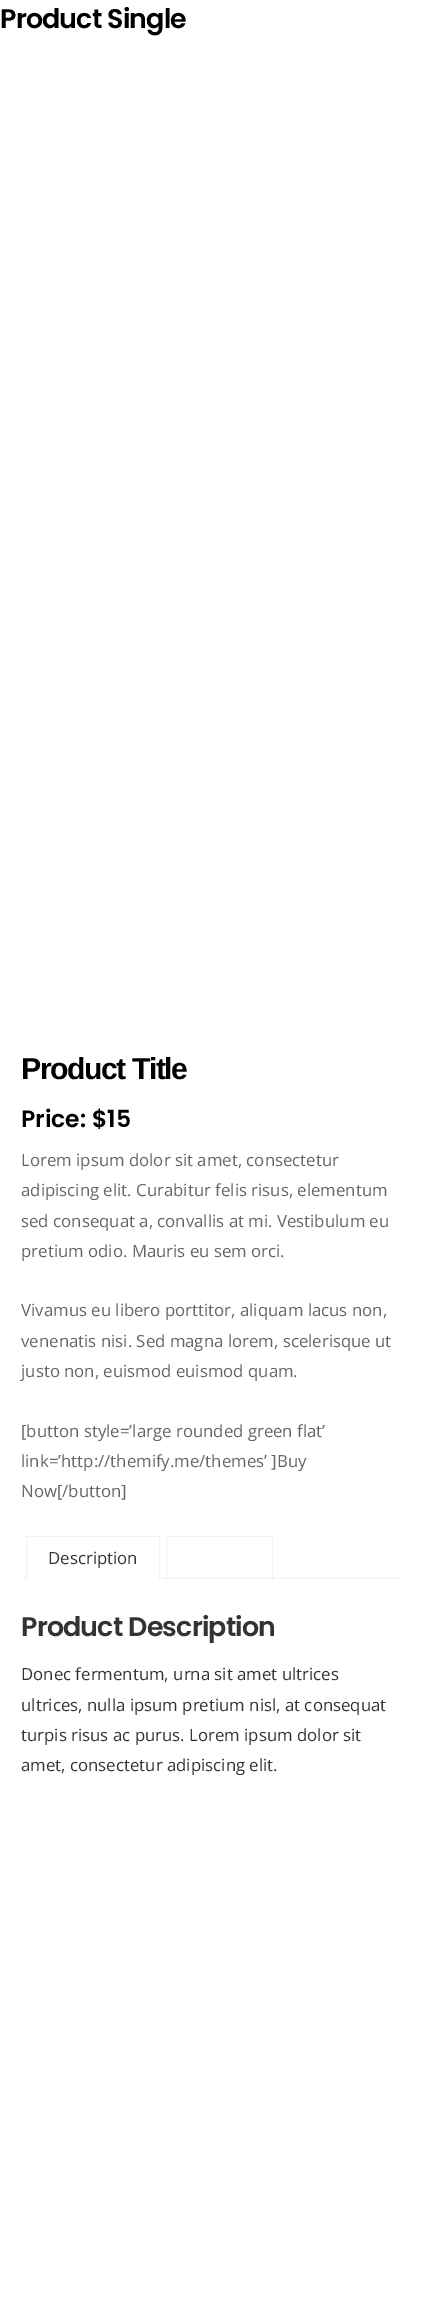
%!PS-Adobe-3.0
%%BoundingBox: 0 0 422 2311
%%LanguageLevel: 3
%%Pages: 1
%%EndComments
%%BeginProlog
/setink { 3 { 255 div 3 1 roll } repeat setrgbcolor } def
/usefont { [ exch dup neg 0 0 3 -1 roll 0 0 ] selectfont } def
/drawtext { setink usefont moveto show } def
/fillbox { setink rectfill } def
/setalpha { dup .setfillconstantalpha .setstrokeconstantalpha } def
%%EndProlog
%%BeginSetup
<< /PageSize [422 2311] /PageUsesTransparency true >> setpagedevice
%%EndSetup
%%Page: 1 1
0 .pushpdf14devicefilter
0 2311 translate 1 -1 scale
4 setmiterlimit
0 0 422 2311 255 255 255 fillbox
/Poppins-SemiBold 26.9 usefont
0 0 0 setink
0 28 moveto -0.8 0 (Product Single) ashow
/LiberationSans-Bold 30.25 usefont
21 1079 moveto -1.5 0 (Product Title) ashow
(Price: $15) 21 1127 /Poppins-SemiBold 23.5 0 0 0 drawtext
(Lorem ipsum dolor sit amet, consectetur) 21 1166 /OpenSans-Regular 16.8 101 101 101 drawtext
(adipiscing elit. Curabitur felis risus, elementum) 21 1196 /OpenSans-Regular 16.8 101 101 101 drawtext
(sed consequat a, convallis at mi. Vestibulum eu) 21 1227 /OpenSans-Regular 16.8 101 101 101 drawtext
(pretium odio. Mauris eu sem orci.) 21 1257 /OpenSans-Regular 16.8 101 101 101 drawtext
(Vivamus eu libero porttitor, aliquam lacus non,) 21 1316 /OpenSans-Regular 16.8 101 101 101 drawtext
(venenatis nisi. Sed magna lorem, scelerisque ut) 21 1347 /OpenSans-Regular 16.8 101 101 101 drawtext
(justo non, euismod euismod quam.) 21 1377 /OpenSans-Regular 16.8 101 101 101 drawtext
([button style=’large rounded green flat’) 21 1437 /OpenSans-Regular 16.8 101 101 101 drawtext
(link=’http://themify.me/themes’ ]Buy) 21 1467 /OpenSans-Regular 16.8 101 101 101 drawtext
(Now[/button]) 21 1497 /OpenSans-Regular 16.8 101 101 101 drawtext
21 1578 380 1 242 242 242 fillbox
26 1578 134 1 255 255 255 fillbox
242 242 242 setink
26 1536 moveto 160 1536 lineto 159 1537 lineto 27 1537 lineto closepath fill
0.05 setalpha
0 0 0 setink
160 1536 moveto 160 1580 lineto 159 1580 lineto 159 1537 lineto closepath fill
26 1580 moveto 26 1536 lineto 27 1537 lineto 27 1580 lineto closepath fill
1 setalpha
(Description) 48 1564 /OpenSans-Regular 16.8 51 51 51 drawtext
242 242 242 setink
166 1536 moveto 273 1536 lineto 272 1537 lineto 167 1537 lineto closepath fill
0.05 setalpha
0 0 0 setink
273 1536 moveto 273 1580 lineto 272 1580 lineto 272 1537 lineto closepath fill
166 1580 moveto 166 1536 lineto 167 1537 lineto 167 1580 lineto closepath fill
/Poppins-SemiBold 26.9 usefont
1 setalpha
51 51 51 setink
21 1636 moveto -0.8 0 (Product Description) ashow
(Donec fermentum, urna sit amet ultrices) 21 1680 /OpenSans-Regular 16.8 51 51 51 drawtext
(ultrices, nulla ipsum pretium nisl, at consequat) 21 1711 /OpenSans-Regular 16.8 51 51 51 drawtext
(turpis risus ac purus. Lorem ipsum dolor sit) 21 1741 /OpenSans-Regular 16.8 51 51 51 drawtext
(amet, consectetur adipiscing elit.) 21 1771 /OpenSans-Regular 16.8 51 51 51 drawtext
.poppdf14devicefilter showpage
%%EOF
